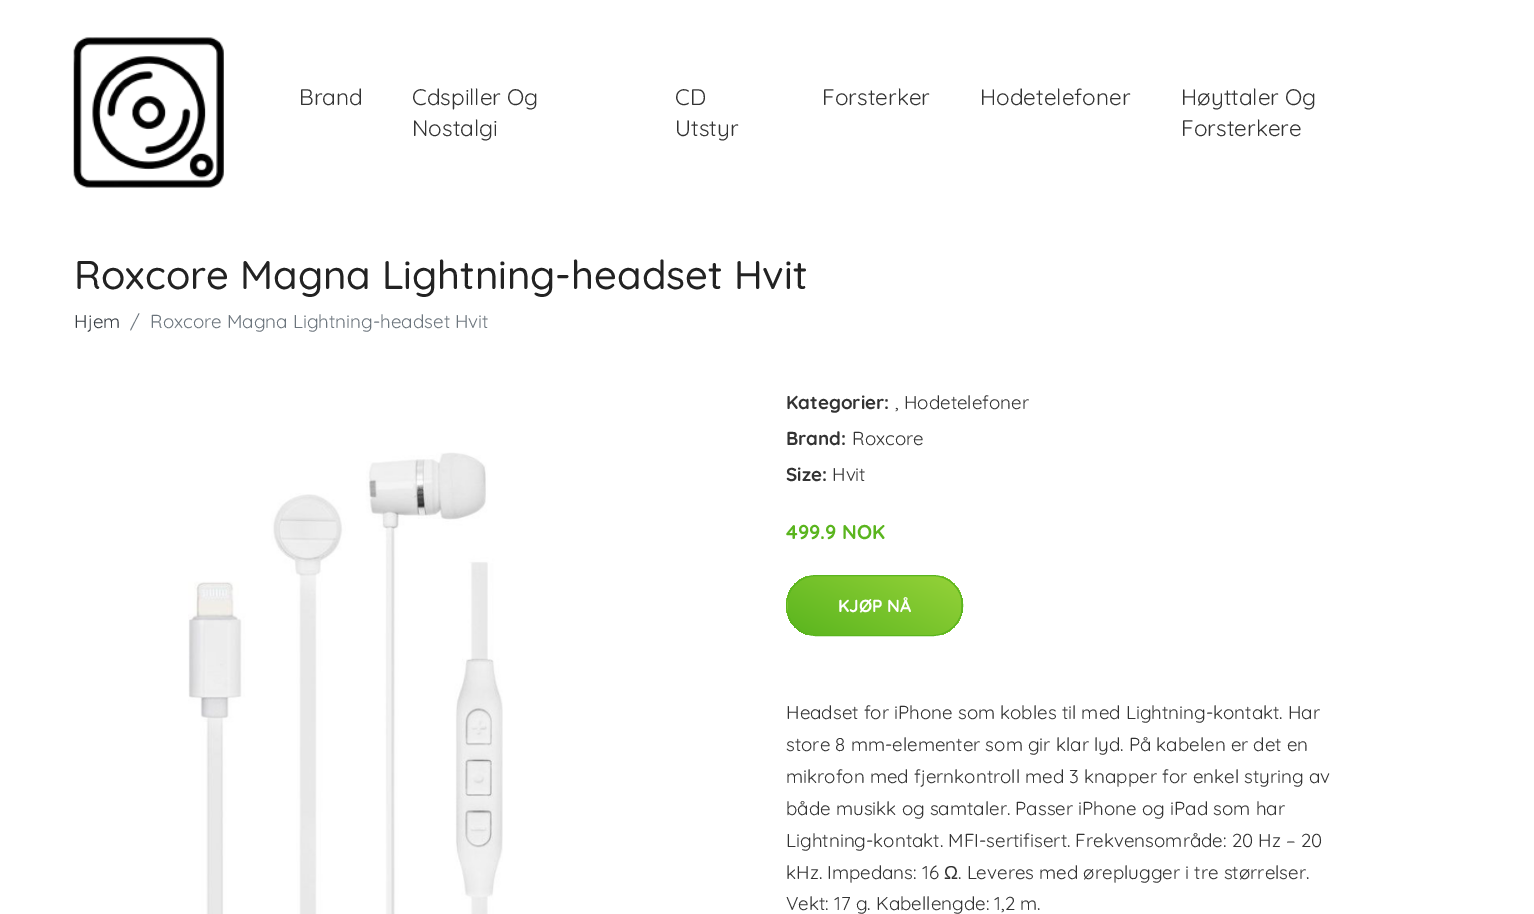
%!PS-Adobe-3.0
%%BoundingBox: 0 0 1534 914
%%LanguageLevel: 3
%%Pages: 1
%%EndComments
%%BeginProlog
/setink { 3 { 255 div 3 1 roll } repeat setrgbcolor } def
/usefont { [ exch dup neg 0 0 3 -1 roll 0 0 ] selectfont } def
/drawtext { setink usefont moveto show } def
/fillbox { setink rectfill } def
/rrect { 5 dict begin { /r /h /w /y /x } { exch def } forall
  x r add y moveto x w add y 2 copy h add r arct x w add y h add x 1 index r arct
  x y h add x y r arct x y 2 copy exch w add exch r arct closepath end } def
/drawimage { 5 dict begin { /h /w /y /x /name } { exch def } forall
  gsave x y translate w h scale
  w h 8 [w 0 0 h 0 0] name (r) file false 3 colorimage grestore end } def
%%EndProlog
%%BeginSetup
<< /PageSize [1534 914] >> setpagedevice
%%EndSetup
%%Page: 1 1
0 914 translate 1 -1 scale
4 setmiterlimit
0 0 1534 914 255 255 255 fillbox
(assets/img1.rgb) 73 37 151 151 drawimage
(Brand) 299 105 /Quicksand-Regular 22.5 51 51 51 drawtext
(Cdspiller Og) 412 105 /Quicksand-Regular 22.5 51 51 51 drawtext
(Nostalgi) 412 136 /Quicksand-Regular 22.5 51 51 51 drawtext
(CD) 675 105 /Quicksand-Regular 22.5 51 51 51 drawtext
(Utstyr) 675 136 /Quicksand-Regular 22.5 51 51 51 drawtext
(Forsterker) 822 105 /Quicksand-Regular 22.5 51 51 51 drawtext
(Hodetelefoner) 980 105 /Quicksand-Regular 22.5 51 51 51 drawtext
(Høyttaler Og) 1181 105 /Quicksand-Regular 22.5 51 51 51 drawtext
(Forsterkere) 1181 136 /Quicksand-Regular 22.5 51 51 51 drawtext
(Roxcore Magna Lightning-headset Hvit) 74 289 /Quicksand-Medium 40 34 34 34 drawtext
(Hjem) 74 328 /Quicksand-Regular 18.75 52 58 64 drawtext
(/) 130 328 /Quicksand-Regular 18.75 108 117 125 drawtext
(Roxcore Magna Lightning-headset Hvit) 150 328 /Quicksand-Regular 18.75 108 117 125 drawtext
(assets/img2.rgb) 188 452 315 462 drawimage
(Kategorier:) 786 409 /Quicksand-Bold 18.75 51 51 51 drawtext
(, Hodetelefoner) 895 409 /Quicksand-Regular 18.75 51 51 51 drawtext
(Brand:) 786 445 /Quicksand-Bold 18.75 51 51 51 drawtext
(Roxcore) 852 445 /Quicksand-Regular 18.75 51 51 51 drawtext
(Size:) 786 481 /Quicksand-Bold 18.75 51 51 51 drawtext
(Hvit) 832 481 /Quicksand-Regular 18.75 51 51 51 drawtext
(499.9 NOK) 786 539 /Quicksand-Bold 20 90 181 30 drawtext
gsave
786 575 177 61 30.5 rrect clip newpath
gsave 786 595 moveto 788 595 lineto 788 616 lineto 786 616 lineto closepath clip newpath
<< /ShadingType 2 /ColorSpace /DeviceRGB /Coords [671 664 730 547] /Extend [true true] /Function << /FunctionType 2 /Domain [0 1] /C0 [0.353 0.71 0.118] /C1 [0.584 0.824 0.224] /N 1 >> >> shfill grestore
gsave 788 576 moveto 961 576 lineto 961 635 lineto 788 635 lineto closepath clip newpath
<< /ShadingType 2 /ColorSpace /DeviceRGB /Coords [845 664 904 547] /Extend [true true] /Function << /FunctionType 2 /Domain [0 1] /C0 [0.353 0.71 0.118] /C1 [0.584 0.824 0.224] /N 1 >> >> shfill grestore
gsave 961 595 moveto 963 595 lineto 963 616 lineto 961 616 lineto closepath clip newpath
<< /ShadingType 2 /ColorSpace /DeviceRGB /Coords [1018 664 1078 547] /Extend [true true] /Function << /FunctionType 2 /Domain [0 1] /C0 [0.353 0.71 0.118] /C1 [0.584 0.824 0.224] /N 1 >> >> shfill grestore
grestore
786.5 575.5 176 60 30 rrect stroke
(KJØP NÅ) 838 612 /Quicksand-Bold 17.5 255 255 255 drawtext
(Headset for iPhone som kobles til med Lightning-kontakt. Har) 786 719 /Quicksand-Regular 18.75 51 51 51 drawtext
(store 8 mm-elementer som gir klar lyd. På kabelen er det en) 786 751 /Quicksand-Regular 18.75 51 51 51 drawtext
(mikrofon med fjernkontroll med 3 knapper for enkel styring av) 786 783 /Quicksand-Regular 18.75 51 51 51 drawtext
(både musikk og samtaler. Passer iPhone og iPad som har) 786 815 /Quicksand-Regular 18.75 51 51 51 drawtext
(Lightning-kontakt. MFI-sertifisert. Frekvensområde: 20 Hz – 20) 786 847 /Quicksand-Regular 18.75 51 51 51 drawtext
(kHz. Impedans: 16) 786 879 /Quicksand-Regular 18.75 51 51 51 drawtext
(Ω) 944 879 /LiberationSans-Regular 18.75 51 51 51 drawtext
(. Leveres med øreplugger i tre størrelser.) 958 879 /Quicksand-Regular 18.75 51 51 51 drawtext
(Vekt: 17 g. Kabellengde: 1,2 m.) 786 910 /Quicksand-Regular 18.75 51 51 51 drawtext
showpage
%%EOF
